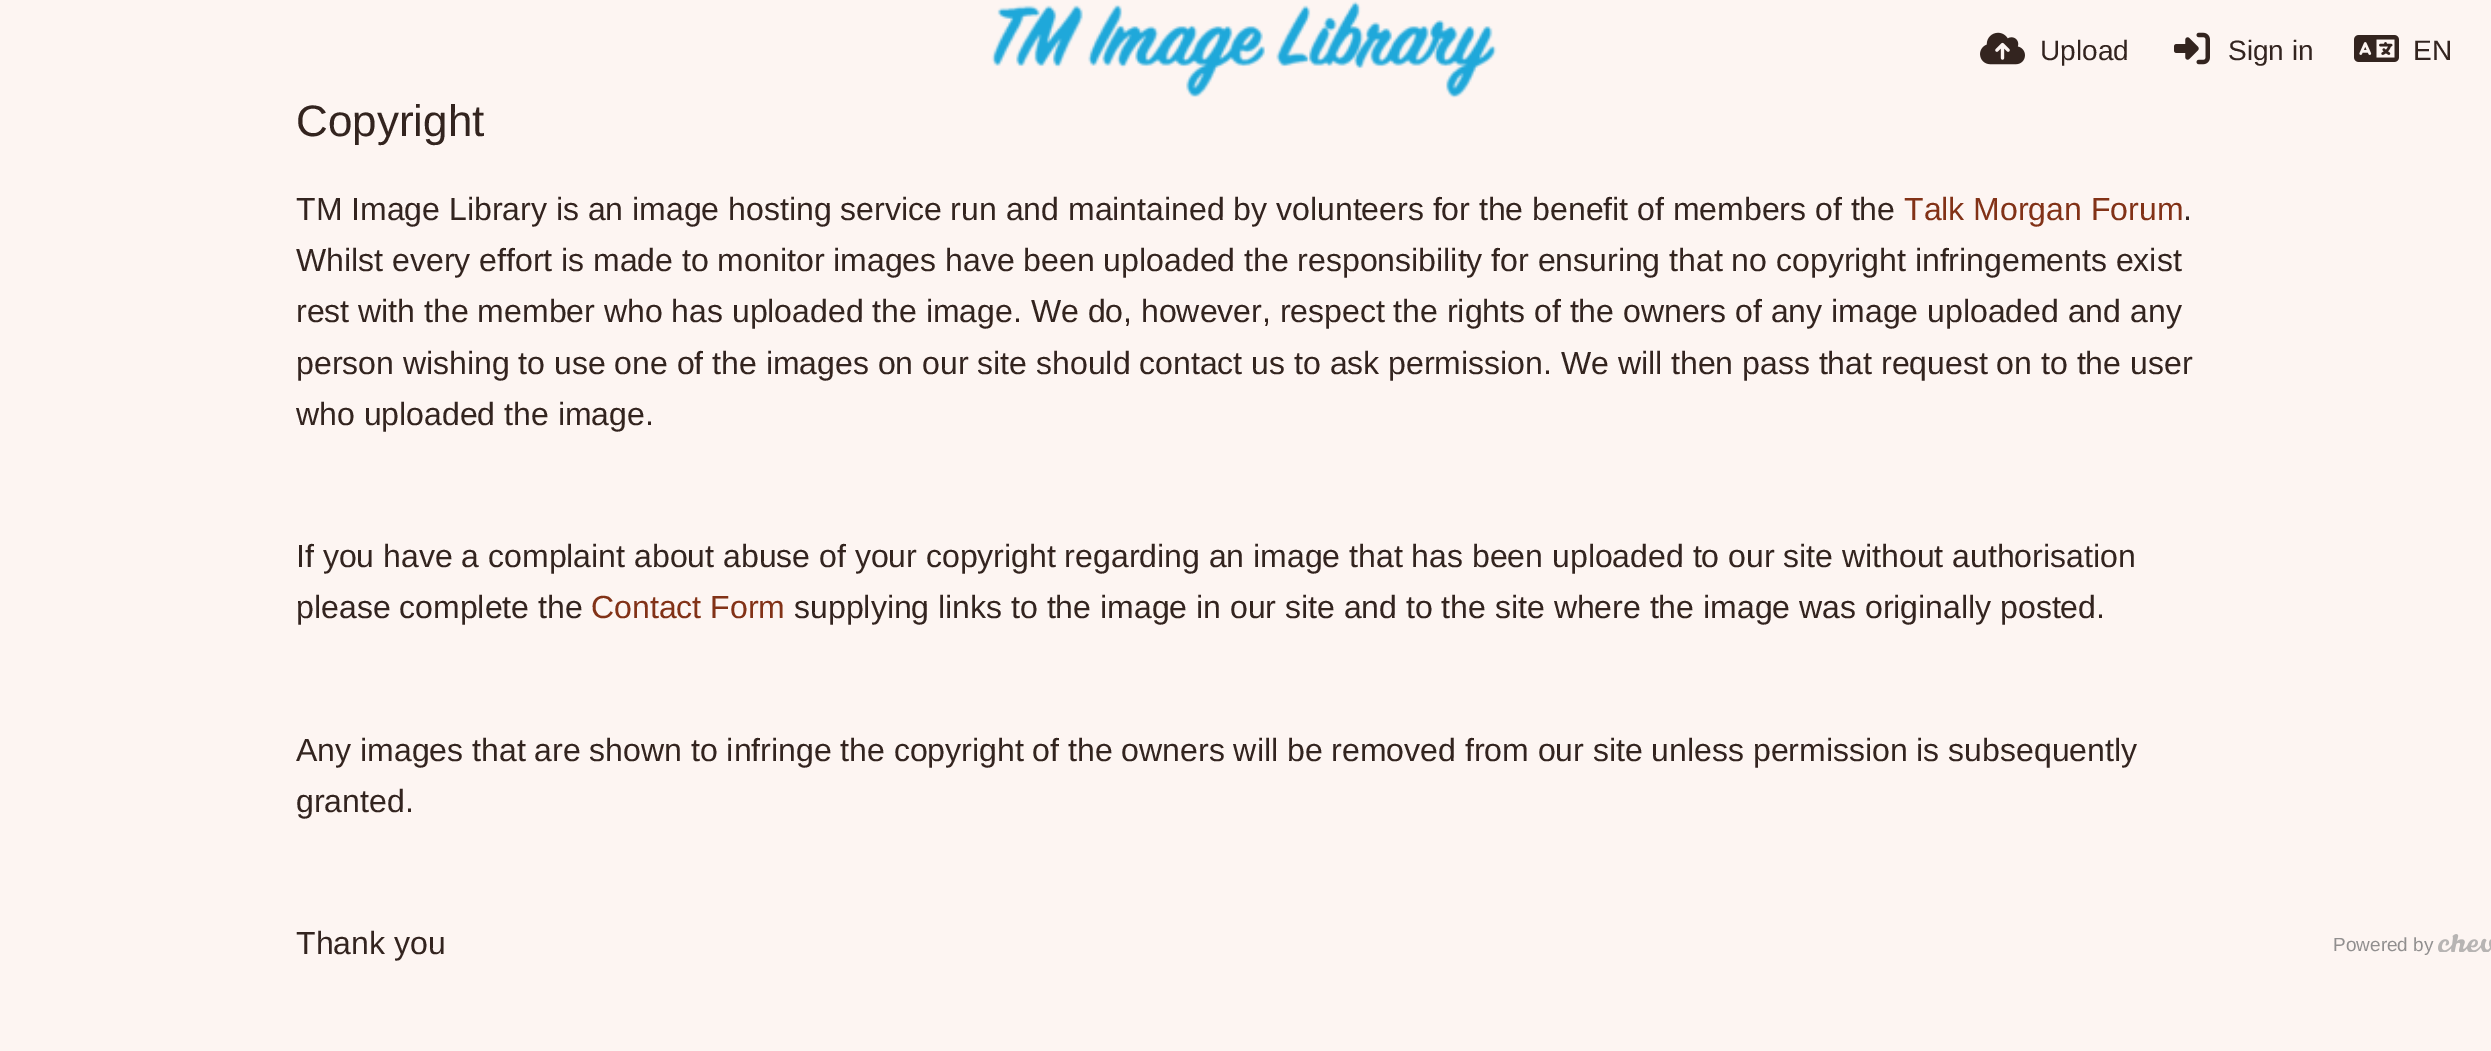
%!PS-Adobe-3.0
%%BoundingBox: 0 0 2491 1051
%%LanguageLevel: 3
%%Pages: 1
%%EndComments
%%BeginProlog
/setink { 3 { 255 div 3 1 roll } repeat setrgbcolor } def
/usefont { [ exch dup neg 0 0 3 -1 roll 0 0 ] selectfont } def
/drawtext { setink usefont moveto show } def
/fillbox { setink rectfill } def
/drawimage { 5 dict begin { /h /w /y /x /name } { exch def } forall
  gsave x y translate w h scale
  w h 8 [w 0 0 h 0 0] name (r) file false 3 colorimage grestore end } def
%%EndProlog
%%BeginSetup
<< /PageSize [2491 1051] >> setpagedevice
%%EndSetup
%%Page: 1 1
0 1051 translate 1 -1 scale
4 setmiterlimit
0 0 2491 1051 253 245 242 fillbox
(assets/img1.rgb) 991 1 506 97 drawimage
(assets/img2.rgb) 1980 32 45 33 drawimage
(Upload) 2040 60 /LiberationSans-Regular 28 51 36 31 drawtext
(assets/img3.rgb) 2174 32 36 33 drawimage
(Sign in) 2228 60 /LiberationSans-Regular 28 51 36 31 drawtext
(assets/img4.rgb) 2354 35 45 27 drawimage
(EN) 2413 60 /LiberationSans-Regular 28 51 36 31 drawtext
(Copyright) 296 136 /LiberationSans-Regular 44 51 36 31 drawtext
(TM Image Library is an image hosting service run and maintained by volunteers for the benefit of members of the) 296 220 /LiberationSans-Regular 32 51 36 31 drawtext
(Talk Morgan Forum) 1904 220 /LiberationSans-Regular 32 130 50 23 drawtext
(.) 2183 220 /LiberationSans-Regular 32 51 36 31 drawtext
(Whilst every effort is made to monitor images have been uploaded the responsibility for ensuring that no copyright infringements exist) 296 271 /LiberationSans-Regular 32 51 36 31 drawtext
(rest with the member who has uploaded the image. We do, however, respect the rights of the owners of any image uploaded and any) 296 322 /LiberationSans-Regular 32 51 36 31 drawtext
(person wishing to use one of the images on our site should contact us to ask permission. We will then pass that request on to the user) 296 374 /LiberationSans-Regular 32 51 36 31 drawtext
(who uploaded the image.) 296 425 /LiberationSans-Regular 32 51 36 31 drawtext
(If you have a complaint about abuse of your copyright regarding an image that has been uploaded to our site without authorisation) 296 567 /LiberationSans-Regular 32 51 36 31 drawtext
(please complete the) 296 618 /LiberationSans-Regular 32 51 36 31 drawtext
(Contact Form) 591 618 /LiberationSans-Regular 32 130 50 23 drawtext
(supplying links to the image in our site and to the site where the image was originally posted.) 794 618 /LiberationSans-Regular 32 51 36 31 drawtext
(Any images that are shown to infringe the copyright of the owners will be removed from our site unless permission is subsequently) 296 761 /LiberationSans-Regular 32 51 36 31 drawtext
(granted.) 296 812 /LiberationSans-Regular 32 51 36 31 drawtext
(Thank you) 296 954 /LiberationSans-Regular 32 51 36 31 drawtext
(Powered by) 2333 951 /LiberationSans-Regular 19 145 143 143 drawtext
(assets/img5.rgb) 2438 934 53 18 drawimage
showpage
%%EOF
